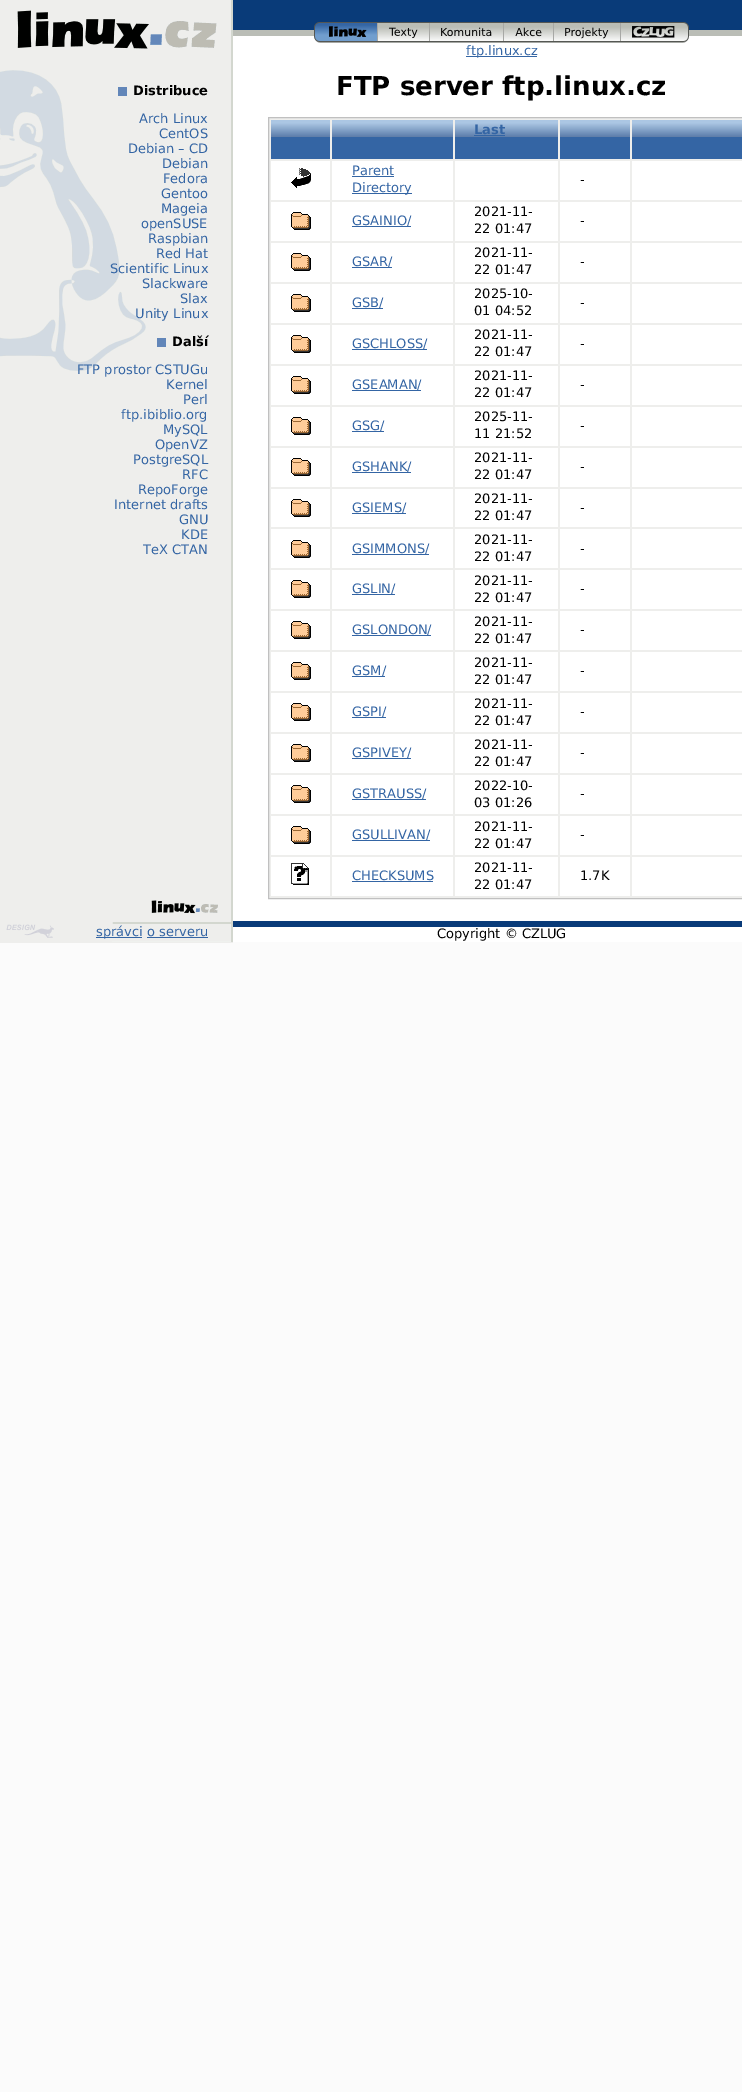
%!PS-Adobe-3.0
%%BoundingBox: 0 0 742 2092
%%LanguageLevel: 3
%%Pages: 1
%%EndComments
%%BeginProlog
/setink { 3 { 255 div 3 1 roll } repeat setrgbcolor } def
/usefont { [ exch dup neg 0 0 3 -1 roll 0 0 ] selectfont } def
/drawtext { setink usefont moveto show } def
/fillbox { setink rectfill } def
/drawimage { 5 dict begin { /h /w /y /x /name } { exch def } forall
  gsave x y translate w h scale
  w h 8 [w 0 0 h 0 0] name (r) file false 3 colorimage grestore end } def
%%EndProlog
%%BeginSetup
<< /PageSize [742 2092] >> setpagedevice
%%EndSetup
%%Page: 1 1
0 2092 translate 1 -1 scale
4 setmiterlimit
0 0 742 2092 251 251 251 fillbox
233 36 509 906 255 255 255 fillbox
(assets/img1.rgb) 0 70 233 829 drawimage
(assets/img2.rgb) 233 0 509 36 drawimage
0 0 231 70 238 238 236 fillbox
231 0 2 70 211 215 207 fillbox
(assets/img3.rgb) 17 10 200 39 drawimage
(assets/img4.rgb) 314 22 64 21 drawimage
(assets/img5.rgb) 314 22 63 20 drawimage
(assets/img6.rgb) 378 22 52 21 drawimage
(assets/img7.rgb) 387 24 34 13 drawimage
(assets/img8.rgb) 430 22 74 21 drawimage
(assets/img9.rgb) 436 24 62 12 drawimage
(assets/img10.rgb) 504 22 50 21 drawimage
(assets/img11.rgb) 514 24 30 12 drawimage
(assets/img12.rgb) 554 22 67 21 drawimage
(assets/img13.rgb) 561 24 53 13 drawimage
(assets/img14.rgb) 621 22 68 21 drawimage
(assets/img15.rgb) 638 24 34 13 drawimage
466 56 71 1 52 101 164 fillbox
(ftp.linux.cz) 466 55 /DejaVuSans-Regular 13 52 101 164 drawtext
(assets/img16.rgb) 0 70 146 301 drawimage
(Distribuce) 133 95 /DejaVuSans-Bold 13 0 0 0 drawtext
118 87 9 9 98 134 185 fillbox
(Arch Linux) 139 123 /DejaVuSans-Regular 13 52 101 164 drawtext
(CentOS) 159 138 /DejaVuSans-Regular 13 52 101 164 drawtext
(Debian – CD) 128 153 /DejaVuSans-Regular 13 52 101 164 drawtext
(Debian) 162 168 /DejaVuSans-Regular 13 52 101 164 drawtext
(Fedora) 163 183 /DejaVuSans-Regular 13 52 101 164 drawtext
(Gentoo) 161 198 /DejaVuSans-Regular 13 52 101 164 drawtext
(Mageia) 161 213 /DejaVuSans-Regular 13 52 101 164 drawtext
(openSUSE) 141 228 /DejaVuSans-Regular 13 52 101 164 drawtext
(Raspbian) 148 243 /DejaVuSans-Regular 13 52 101 164 drawtext
(Red Hat) 156 258 /DejaVuSans-Regular 13 52 101 164 drawtext
(Scientific Linux) 110 273 /DejaVuSans-Regular 13 52 101 164 drawtext
(Slackware) 142 288 /DejaVuSans-Regular 13 52 101 164 drawtext
(Slax) 180 303 /DejaVuSans-Regular 13 52 101 164 drawtext
(Unity Linux) 135 318 /DejaVuSans-Regular 13 52 101 164 drawtext
(Další) 172 346 /DejaVuSans-Bold 13 0 0 0 drawtext
157 338 9 9 98 134 185 fillbox
(FTP prostor CSTUGu) 77 374 /DejaVuSans-Regular 13 52 101 164 drawtext
(Kernel) 166 389 /DejaVuSans-Regular 13 52 101 164 drawtext
(Perl) 183 404 /DejaVuSans-Regular 13 52 101 164 drawtext
(ftp.ibiblio.org) 121 419 /DejaVuSans-Regular 13 52 101 164 drawtext
(MySQL) 163 434 /DejaVuSans-Regular 13 52 101 164 drawtext
(OpenVZ) 155 449 /DejaVuSans-Regular 13 52 101 164 drawtext
(PostgreSQL) 133 464 /DejaVuSans-Regular 13 52 101 164 drawtext
(RFC) 182 479 /DejaVuSans-Regular 13 52 101 164 drawtext
(RepoForge) 138 494 /DejaVuSans-Regular 13 52 101 164 drawtext
(Internet drafts) 114 509 /DejaVuSans-Regular 13 52 101 164 drawtext
(GNU) 179 524 /DejaVuSans-Regular 13 52 101 164 drawtext
(KDE) 181 539 /DejaVuSans-Regular 13 52 101 164 drawtext
(TeX CTAN) 143 554 /DejaVuSans-Regular 13 52 101 164 drawtext
(FTP server ftp.linux.cz) 336 95 /DejaVuSans-Bold 26 0 0 0 drawtext
238 238 236 setink
268.5 117.5 moveto 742.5 117.5 lineto 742.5 898.5 lineto 268.5 898.5 lineto closepath gsave fill grestore
192 192 192 setink
stroke
271 137 59 22 52 101 164 fillbox
(assets/img17.rgb) 271 120 59 17 drawimage
332 137 121 22 52 101 164 fillbox
(assets/img18.rgb) 332 120 121 17 drawimage
455 137 103 22 52 101 164 fillbox
(assets/img19.rgb) 455 120 103 17 drawimage
(Last) 474 134 /DejaVuSans-Bold 13 52 101 164 drawtext
474 135 31 1 52 101 164 fillbox
560 137 70 22 52 101 164 fillbox
(assets/img20.rgb) 560 120 70 17 drawimage
632 137 110 22 52 101 164 fillbox
(assets/img21.rgb) 632 120 110 17 drawimage
271 161 59 39 255 255 255 fillbox
(assets/img22.rgb) 291 168 20 20 drawimage
332 161 121 39 255 255 255 fillbox
(Parent) 352 175 /DejaVuSans-Regular 13 52 101 164 drawtext
352 176 42 1 52 101 164 fillbox
352 193 60 1 52 101 164 fillbox
(Directory) 352 192 /DejaVuSans-Regular 13 52 101 164 drawtext
455 161 103 39 255 255 255 fillbox
560 161 70 39 255 255 255 fillbox
(-) 580 184 /DejaVuSans-Regular 13 0 0 0 drawtext
632 161 110 39 255 255 255 fillbox
271 202 59 39 255 255 255 fillbox
(assets/img23.rgb) 291 212 20 18 drawimage
332 202 121 39 255 255 255 fillbox
352 226 59 1 52 101 164 fillbox
(GSAINIO/) 352 225 /DejaVuSans-Regular 13 52 101 164 drawtext
455 202 103 39 255 255 255 fillbox
(2021-11-) 474 216 /DejaVuSans-Regular 13 0 0 0 drawtext
(22 01:47) 474 233 /DejaVuSans-Regular 13 0 0 0 drawtext
560 202 70 39 255 255 255 fillbox
(-) 580 225 /DejaVuSans-Regular 13 0 0 0 drawtext
632 202 110 39 255 255 255 fillbox
271 243 59 39 255 255 255 fillbox
(assets/img23.rgb) 291 253 20 18 drawimage
332 243 121 39 255 255 255 fillbox
352 267 40 1 52 101 164 fillbox
(GSAR/) 352 266 /DejaVuSans-Regular 13 52 101 164 drawtext
455 243 103 39 255 255 255 fillbox
(2021-11-) 474 257 /DejaVuSans-Regular 13 0 0 0 drawtext
(22 01:47) 474 274 /DejaVuSans-Regular 13 0 0 0 drawtext
560 243 70 39 255 255 255 fillbox
(-) 580 266 /DejaVuSans-Regular 13 0 0 0 drawtext
632 243 110 39 255 255 255 fillbox
271 284 59 39 255 255 255 fillbox
(assets/img23.rgb) 291 294 20 18 drawimage
332 284 121 39 255 255 255 fillbox
352 308 31 1 52 101 164 fillbox
(GSB/) 352 307 /DejaVuSans-Regular 13 52 101 164 drawtext
455 284 103 39 255 255 255 fillbox
(2025-10-) 474 298 /DejaVuSans-Regular 13 0 0 0 drawtext
(01 04:52) 474 315 /DejaVuSans-Regular 13 0 0 0 drawtext
560 284 70 39 255 255 255 fillbox
(-) 580 307 /DejaVuSans-Regular 13 0 0 0 drawtext
632 284 110 39 255 255 255 fillbox
271 325 59 39 255 255 255 fillbox
(assets/img23.rgb) 291 335 20 18 drawimage
332 325 121 39 255 255 255 fillbox
352 349 75 1 52 101 164 fillbox
(GSCHLOSS/) 352 348 /DejaVuSans-Regular 13 52 101 164 drawtext
455 325 103 39 255 255 255 fillbox
(2021-11-) 474 339 /DejaVuSans-Regular 13 0 0 0 drawtext
(22 01:47) 474 356 /DejaVuSans-Regular 13 0 0 0 drawtext
560 325 70 39 255 255 255 fillbox
(-) 580 348 /DejaVuSans-Regular 13 0 0 0 drawtext
632 325 110 39 255 255 255 fillbox
271 366 59 39 255 255 255 fillbox
(assets/img23.rgb) 291 376 20 18 drawimage
332 366 121 39 255 255 255 fillbox
352 390 69 1 52 101 164 fillbox
(GSEAMAN/) 352 389 /DejaVuSans-Regular 13 52 101 164 drawtext
455 366 103 39 255 255 255 fillbox
(2021-11-) 474 380 /DejaVuSans-Regular 13 0 0 0 drawtext
(22 01:47) 474 397 /DejaVuSans-Regular 13 0 0 0 drawtext
560 366 70 39 255 255 255 fillbox
(-) 580 389 /DejaVuSans-Regular 13 0 0 0 drawtext
632 366 110 39 255 255 255 fillbox
271 407 59 39 255 255 255 fillbox
(assets/img23.rgb) 291 417 20 18 drawimage
332 407 121 39 255 255 255 fillbox
352 431 32 1 52 101 164 fillbox
(GSG/) 352 430 /DejaVuSans-Regular 13 52 101 164 drawtext
455 407 103 39 255 255 255 fillbox
(2025-11-) 474 421 /DejaVuSans-Regular 13 0 0 0 drawtext
(11 21:52) 474 438 /DejaVuSans-Regular 13 0 0 0 drawtext
560 407 70 39 255 255 255 fillbox
(-) 580 430 /DejaVuSans-Regular 13 0 0 0 drawtext
632 407 110 39 255 255 255 fillbox
271 448 59 39 255 255 255 fillbox
(assets/img23.rgb) 291 458 20 18 drawimage
332 448 121 39 255 255 255 fillbox
352 472 59 1 52 101 164 fillbox
(GSHANK/) 352 471 /DejaVuSans-Regular 13 52 101 164 drawtext
455 448 103 39 255 255 255 fillbox
(2021-11-) 474 462 /DejaVuSans-Regular 13 0 0 0 drawtext
(22 01:47) 474 479 /DejaVuSans-Regular 13 0 0 0 drawtext
560 448 70 39 255 255 255 fillbox
(-) 580 471 /DejaVuSans-Regular 13 0 0 0 drawtext
632 448 110 39 255 255 255 fillbox
271 489 59 38 255 255 255 fillbox
(assets/img23.rgb) 291 499 20 18 drawimage
332 489 121 38 255 255 255 fillbox
352 513 54 1 52 101 164 fillbox
(GSIEMS/) 352 512 /DejaVuSans-Regular 13 52 101 164 drawtext
455 489 103 38 255 255 255 fillbox
(2021-11-) 474 503 /DejaVuSans-Regular 13 0 0 0 drawtext
(22 01:47) 474 520 /DejaVuSans-Regular 13 0 0 0 drawtext
560 489 70 38 255 255 255 fillbox
(-) 580 512 /DejaVuSans-Regular 13 0 0 0 drawtext
632 489 110 38 255 255 255 fillbox
271 529 59 39 255 255 255 fillbox
(assets/img23.rgb) 291 540 20 18 drawimage
332 529 121 39 255 255 255 fillbox
352 554 77 1 52 101 164 fillbox
(GSIMMONS/) 352 553 /DejaVuSans-Regular 13 52 101 164 drawtext
455 529 103 39 255 255 255 fillbox
(2021-11-) 474 544 /DejaVuSans-Regular 13 0 0 0 drawtext
(22 01:47) 474 561 /DejaVuSans-Regular 13 0 0 0 drawtext
560 529 70 39 255 255 255 fillbox
(-) 580 553 /DejaVuSans-Regular 13 0 0 0 drawtext
632 529 110 39 255 255 255 fillbox
271 570 59 39 255 255 255 fillbox
(assets/img23.rgb) 291 580 20 18 drawimage
332 570 121 39 255 255 255 fillbox
352 594 43 1 52 101 164 fillbox
(GSLIN/) 352 593 /DejaVuSans-Regular 13 52 101 164 drawtext
455 570 103 39 255 255 255 fillbox
(2021-11-) 474 585 /DejaVuSans-Regular 13 0 0 0 drawtext
(22 01:47) 474 602 /DejaVuSans-Regular 13 0 0 0 drawtext
560 570 70 39 255 255 255 fillbox
(-) 580 593 /DejaVuSans-Regular 13 0 0 0 drawtext
632 570 110 39 255 255 255 fillbox
271 611 59 39 255 255 255 fillbox
(assets/img23.rgb) 291 621 20 18 drawimage
332 611 121 39 255 255 255 fillbox
352 635 79 1 52 101 164 fillbox
(GSLONDON/) 352 634 /DejaVuSans-Regular 13 52 101 164 drawtext
455 611 103 39 255 255 255 fillbox
(2021-11-) 474 626 /DejaVuSans-Regular 13 0 0 0 drawtext
(22 01:47) 474 643 /DejaVuSans-Regular 13 0 0 0 drawtext
560 611 70 39 255 255 255 fillbox
(-) 580 634 /DejaVuSans-Regular 13 0 0 0 drawtext
632 611 110 39 255 255 255 fillbox
271 652 59 39 255 255 255 fillbox
(assets/img23.rgb) 291 662 20 18 drawimage
332 652 121 39 255 255 255 fillbox
352 676 33 1 52 101 164 fillbox
(GSM/) 352 675 /DejaVuSans-Regular 13 52 101 164 drawtext
455 652 103 39 255 255 255 fillbox
(2021-11-) 474 667 /DejaVuSans-Regular 13 0 0 0 drawtext
(22 01:47) 474 684 /DejaVuSans-Regular 13 0 0 0 drawtext
560 652 70 39 255 255 255 fillbox
(-) 580 675 /DejaVuSans-Regular 13 0 0 0 drawtext
632 652 110 39 255 255 255 fillbox
271 693 59 39 255 255 255 fillbox
(assets/img23.rgb) 291 703 20 18 drawimage
332 693 121 39 255 255 255 fillbox
352 717 34 1 52 101 164 fillbox
(GSPI/) 352 716 /DejaVuSans-Regular 13 52 101 164 drawtext
455 693 103 39 255 255 255 fillbox
(2021-11-) 474 708 /DejaVuSans-Regular 13 0 0 0 drawtext
(22 01:47) 474 725 /DejaVuSans-Regular 13 0 0 0 drawtext
560 693 70 39 255 255 255 fillbox
(-) 580 716 /DejaVuSans-Regular 13 0 0 0 drawtext
632 693 110 39 255 255 255 fillbox
271 734 59 39 255 255 255 fillbox
(assets/img23.rgb) 291 744 20 18 drawimage
332 734 121 39 255 255 255 fillbox
352 758 59 1 52 101 164 fillbox
(GSPIVEY/) 352 757 /DejaVuSans-Regular 13 52 101 164 drawtext
455 734 103 39 255 255 255 fillbox
(2021-11-) 474 749 /DejaVuSans-Regular 13 0 0 0 drawtext
(22 01:47) 474 766 /DejaVuSans-Regular 13 0 0 0 drawtext
560 734 70 39 255 255 255 fillbox
(-) 580 757 /DejaVuSans-Regular 13 0 0 0 drawtext
632 734 110 39 255 255 255 fillbox
271 775 59 39 255 255 255 fillbox
(assets/img23.rgb) 291 785 20 18 drawimage
332 775 121 39 255 255 255 fillbox
352 799 74 1 52 101 164 fillbox
(GSTRAUSS/) 352 798 /DejaVuSans-Regular 13 52 101 164 drawtext
455 775 103 39 255 255 255 fillbox
(2022-10-) 474 790 /DejaVuSans-Regular 13 0 0 0 drawtext
(03 01:26) 474 807 /DejaVuSans-Regular 13 0 0 0 drawtext
560 775 70 39 255 255 255 fillbox
(-) 580 798 /DejaVuSans-Regular 13 0 0 0 drawtext
632 775 110 39 255 255 255 fillbox
271 816 59 39 255 255 255 fillbox
(assets/img23.rgb) 291 826 20 18 drawimage
332 816 121 39 255 255 255 fillbox
352 840 78 1 52 101 164 fillbox
(GSULLIVAN/) 352 839 /DejaVuSans-Regular 13 52 101 164 drawtext
455 816 103 39 255 255 255 fillbox
(2021-11-) 474 831 /DejaVuSans-Regular 13 0 0 0 drawtext
(22 01:47) 474 848 /DejaVuSans-Regular 13 0 0 0 drawtext
560 816 70 39 255 255 255 fillbox
(-) 580 839 /DejaVuSans-Regular 13 0 0 0 drawtext
632 816 110 39 255 255 255 fillbox
271 857 59 39 255 255 255 fillbox
(assets/img24.rgb) 291 863 18 22 drawimage
332 857 121 39 255 255 255 fillbox
(CHECKSUMS) 352 880 /DejaVuSans-Regular 13 52 101 164 drawtext
352 881 81 1 52 101 164 fillbox
455 857 103 39 255 255 255 fillbox
(2021-11-) 474 872 /DejaVuSans-Regular 13 0 0 0 drawtext
(22 01:47) 474 889 /DejaVuSans-Regular 13 0 0 0 drawtext
560 857 70 39 255 255 255 fillbox
(1.7K) 580 880 /DejaVuSans-Regular 13 0 0 0 drawtext
632 857 110 39 255 255 255 fillbox
233 921 509 6 9 59 121 fillbox
0 899 233 44 238 238 236 fillbox
(assets/img25.rgb) 112 899 121 43 drawimage
(assets/img26.rgb) 6 924 48 14 drawimage
96 937 46 1 52 101 164 fillbox
(správci o serveru) 96 936 /DejaVuSans-Regular 13 52 101 164 drawtext
147 937 61 1 52 101 164 fillbox
(Copyright © CZLUG) 437 938 /DejaVuSans-Regular 13 0 0 0 drawtext
showpage
%%EOF
